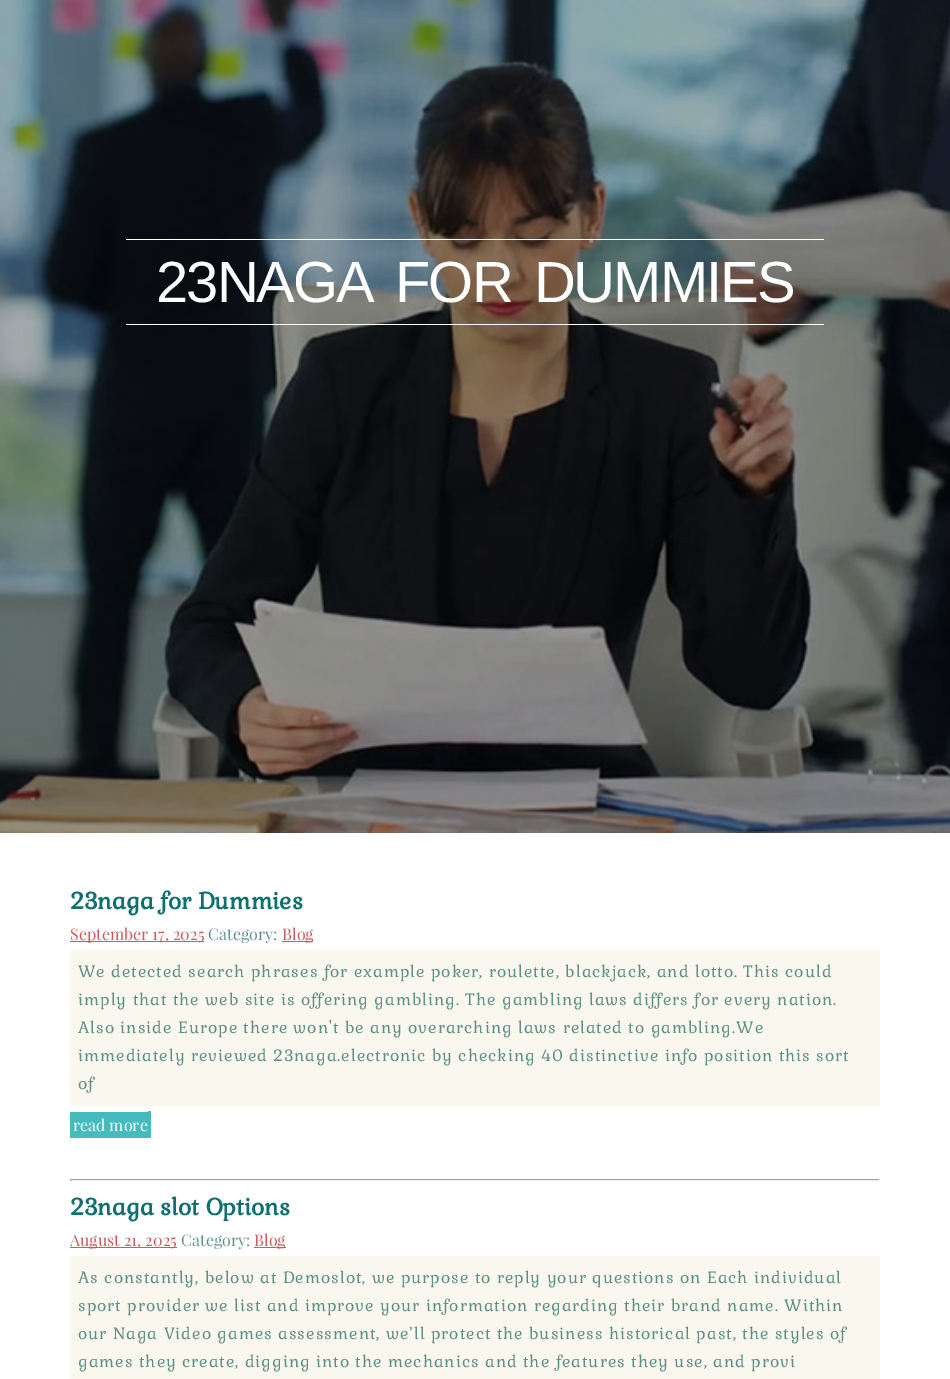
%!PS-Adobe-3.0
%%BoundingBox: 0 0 950 1379
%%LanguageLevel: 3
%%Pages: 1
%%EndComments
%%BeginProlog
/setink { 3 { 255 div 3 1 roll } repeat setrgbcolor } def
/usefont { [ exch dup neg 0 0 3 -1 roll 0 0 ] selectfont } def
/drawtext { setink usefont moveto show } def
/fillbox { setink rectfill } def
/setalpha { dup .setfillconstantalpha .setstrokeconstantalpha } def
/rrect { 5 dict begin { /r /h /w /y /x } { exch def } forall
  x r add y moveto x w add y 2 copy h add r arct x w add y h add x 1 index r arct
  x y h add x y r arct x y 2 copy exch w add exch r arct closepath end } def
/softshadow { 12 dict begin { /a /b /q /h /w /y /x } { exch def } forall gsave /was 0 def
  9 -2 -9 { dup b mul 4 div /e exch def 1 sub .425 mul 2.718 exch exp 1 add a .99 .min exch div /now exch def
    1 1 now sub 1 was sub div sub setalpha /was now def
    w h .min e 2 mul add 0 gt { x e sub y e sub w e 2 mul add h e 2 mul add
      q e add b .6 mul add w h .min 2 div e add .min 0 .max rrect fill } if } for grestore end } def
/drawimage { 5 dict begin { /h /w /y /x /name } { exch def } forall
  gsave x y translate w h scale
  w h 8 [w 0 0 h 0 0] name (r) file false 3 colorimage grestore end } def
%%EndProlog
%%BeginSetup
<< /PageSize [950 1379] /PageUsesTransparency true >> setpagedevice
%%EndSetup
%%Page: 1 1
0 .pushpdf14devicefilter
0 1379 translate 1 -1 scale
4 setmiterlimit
0 0 950 1379 255 255 255 fillbox
(assets/img1.rgb) 0 0 950 833 drawimage
126 239 698 1 255 255 255 fillbox
126 324 698 1 255 255 255 fillbox
/LiberationSans-Regular 58 usefont
156 302 moveto 8 0 32 -2 0 (23NAGA FOR DUMMIES) awidthshow
0 0 0 setink
0 833 950 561 0 5 0.1 softshadow
0 833 950 546 255 255 255 fillbox
(23naga for Dummies) 70 909 /Gabriela-Bold 23 16 112 112 drawtext
70 941 134 1 202 90 91 fillbox
(September 17, 2025) 70 940 /PlayfairDisplay-Regular 16 202 90 91 drawtext
(Category:) 208 940 /PlayfairDisplay-Regular 16 95 144 136 drawtext
282 941 31 1 202 90 91 fillbox
(Blog) 282 940 /PlayfairDisplay-Regular 16 202 90 91 drawtext
70 950 810 156 250 247 238 fillbox
/Gabriela-Regular 16 usefont
95 144 136 setink
78 977 moveto 1 0 (We detected search phrases for example poker, roulette, blackjack, and lotto. This could) ashow
78 1005 moveto 1 0 (imply that the web site is offering gambling. The gambling laws differs for every nation.) ashow
78 1033 moveto 1 0 (Also inside Europe there won't be any overarching laws related to gambling.We) ashow
78 1061 moveto 1 0 (immediately reviewed 23naga.electronic by checking 40 distinctive info position this sort) ashow
78 1089 moveto 1 0 (of) ashow
70 1112 78 26 69 187 190 fillbox
(read more) 73 1131 /PlayfairDisplay-Regular 16 255 255 255 drawtext
148 1111 3 27 69 187 190 fillbox
70 1179 810 1 159 159 159 fillbox
879 1179 1 2 238 238 238 fillbox
70 1180 810 1 238 238 238 fillbox
70 1179 1 2 159 159 159 fillbox
(23naga slot Options) 70 1215 /Gabriela-Bold 23 16 112 112 drawtext
70 1247 107 1 202 90 91 fillbox
(August 21, 2025) 70 1246 /PlayfairDisplay-Regular 16 202 90 91 drawtext
(Category:) 181 1246 /PlayfairDisplay-Regular 16 95 144 136 drawtext
254 1247 32 1 202 90 91 fillbox
(Blog) 254 1246 /PlayfairDisplay-Regular 16 202 90 91 drawtext
70 1256 810 123 250 247 238 fillbox
/Gabriela-Regular 16 usefont
95 144 136 setink
78 1283 moveto 1 0 (As constantly, below at Demoslot, we purpose to reply your questions on Each individual) ashow
78 1311 moveto 1 0 (sport provider we list and improve your information regarding their brand name. Within) ashow
78 1339 moveto 1 0 (our Naga Video games assessment, we’ll protect the business historical past, the styles of) ashow
78 1367 moveto 1 0 (games they create, digging into the mechanics and the features they use, and provi) ashow
.poppdf14devicefilter showpage
%%EOF
